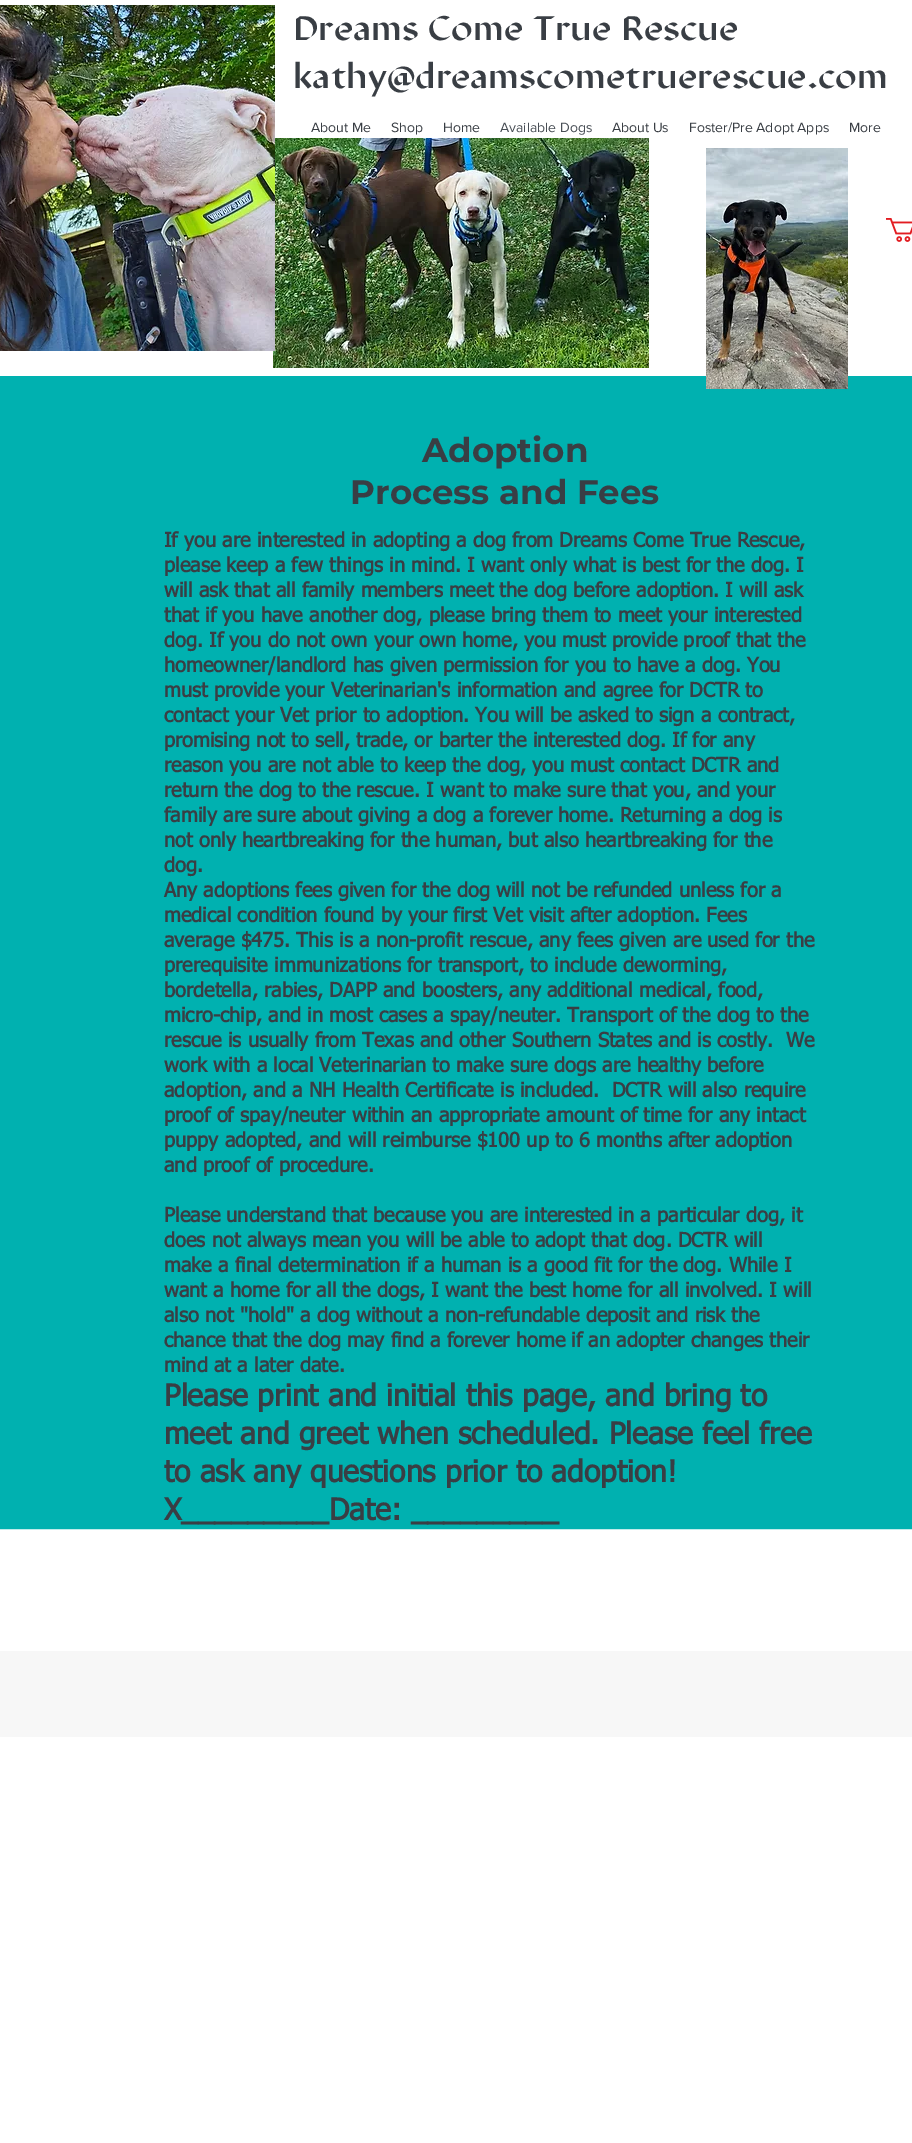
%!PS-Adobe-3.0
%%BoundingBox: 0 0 912 2143
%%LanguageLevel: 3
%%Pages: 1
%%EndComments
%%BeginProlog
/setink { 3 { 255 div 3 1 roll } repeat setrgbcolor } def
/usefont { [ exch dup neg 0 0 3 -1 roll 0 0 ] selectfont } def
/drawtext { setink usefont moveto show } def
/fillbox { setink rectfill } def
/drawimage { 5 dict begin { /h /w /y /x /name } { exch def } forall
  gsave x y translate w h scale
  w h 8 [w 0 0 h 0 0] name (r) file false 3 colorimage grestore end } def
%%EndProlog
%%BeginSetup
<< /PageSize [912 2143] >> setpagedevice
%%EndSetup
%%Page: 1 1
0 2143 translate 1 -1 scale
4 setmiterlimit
0 0 912 2143 0 177 176 fillbox
0 0 912 376 255 255 255 fillbox
(assets/img2.rgb) 273 138 376 230 drawimage
(assets/img1.rgb) 0 5 275 346 drawimage
(Dreams Come True Rescue) 293 40 /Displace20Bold-Bold 34 57 62 68 drawtext
(kathy@dreamscometruerescue.com) 293 88 /Displace20Bold-Bold 34 57 62 68 drawtext
(About Me) 311 132 /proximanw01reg-Regular 14 57 62 68 drawtext
(Shop) 391 132 /proximanw01reg-Regular 14 57 62 68 drawtext
(Home) 443 132 /proximanw01reg-Regular 14 57 62 68 drawtext
(Available Dogs) 500 132 /proximanw01reg-Regular 14 72 78 85 drawtext
(About Us) 612 132 /proximanw01reg-Regular 14 57 62 68 drawtext
(Foster/Pre Adopt Apps) 689 132 /proximanw01reg-Regular 14 57 62 68 drawtext
(More) 849 132 /proximanw01reg-Regular 14 57 62 68 drawtext
(assets/img3.rgb) 706 148 142 241 drawimage
(assets/img4.rgb) 886 218 26 24 drawimage
(Adoption) 422 462 /Montserrat-Bold 34 57 62 68 drawtext
(Process and Fees) 350 504 /Montserrat-Bold 34 57 62 68 drawtext
(If you are interested in adopting a dog from Dreams Come True Rescue,) 164 547 /tahoma-Bold 20 57 62 68 drawtext
(please keep a few things in mind. I want only what is best for the dog. I) 164 572 /tahoma-Bold 20 57 62 68 drawtext
(will ask that all family members meet the dog before adoption. I will ask) 164 597 /tahoma-Bold 20 57 62 68 drawtext
(that if you have another dog, please bring them to meet your interested) 164 622 /tahoma-Bold 20 57 62 68 drawtext
(dog. If you do not own your own home, you must provide proof that the) 164 647 /tahoma-Bold 20 57 62 68 drawtext
(homeowner/landlord has given permission for you to have a dog. You) 164 672 /tahoma-Bold 20 57 62 68 drawtext
(must provide your Veterinarian's information and agree for DCTR to) 164 697 /tahoma-Bold 20 57 62 68 drawtext
(contact your Vet prior to adoption. You will be asked to sign a contract,) 164 722 /tahoma-Bold 20 57 62 68 drawtext
(promising not to sell, trade, or barter the interested dog. If for any) 164 747 /tahoma-Bold 20 57 62 68 drawtext
(reason you are not able to keep the dog, you must contact DCTR and) 164 772 /tahoma-Bold 20 57 62 68 drawtext
(return the dog to the rescue. I want to make sure that you, and your) 164 797 /tahoma-Bold 20 57 62 68 drawtext
(family are sure about giving a dog a forever home. Returning a dog is) 164 822 /tahoma-Bold 20 57 62 68 drawtext
(not only heartbreaking for the human, but also heartbreaking for the) 164 847 /tahoma-Bold 20 57 62 68 drawtext
(dog.) 164 872 /tahoma-Bold 20 57 62 68 drawtext
(Any adoptions fees given for the dog will not be refunded unless for a) 164 897 /tahoma-Bold 20 57 62 68 drawtext
(medical condition found by your first Vet visit after adoption. Fees) 164 922 /tahoma-Bold 20 57 62 68 drawtext
(average $475. This is a non-profit rescue, any fees given are used for the) 164 947 /tahoma-Bold 20 57 62 68 drawtext
(prerequisite immunizations for transport, to include deworming,) 164 972 /tahoma-Bold 20 57 62 68 drawtext
(bordetella, rabies, DAPP and boosters, any additional medical, food,) 164 997 /tahoma-Bold 20 57 62 68 drawtext
(micro-chip, and in most cases a spay/neuter. Transport of the dog to the) 164 1022 /tahoma-Bold 20 57 62 68 drawtext
(rescue is usually from Texas and other Southern States and is costly.  We) 164 1047 /tahoma-Bold 20 57 62 68 drawtext
(work with a local Veterinarian to make sure dogs are healthy before) 164 1072 /tahoma-Bold 20 57 62 68 drawtext
(adoption, and a NH Health Certificate is included.  DCTR will also require) 164 1097 /tahoma-Bold 20 57 62 68 drawtext
(proof of spay/neuter within an appropriate amount of time for any intact) 164 1122 /tahoma-Bold 20 57 62 68 drawtext
(puppy adopted, and will reimburse $100 up to 6 months after adoption) 164 1147 /tahoma-Bold 20 57 62 68 drawtext
(and proof of procedure.) 164 1172 /tahoma-Bold 20 57 62 68 drawtext
(Please understand that because you are interested in a particular dog, it) 164 1222 /tahoma-Bold 20 57 62 68 drawtext
(does not always mean you will be able to adopt that dog. DCTR will) 164 1247 /tahoma-Bold 20 57 62 68 drawtext
(make a final determination if a human is a good fit for the dog. While I) 164 1272 /tahoma-Bold 20 57 62 68 drawtext
(want a home for all the dogs, I want the best home for all involved. I will) 164 1297 /tahoma-Bold 20 57 62 68 drawtext
(also not "hold" a dog without a non-refundable deposit and risk the) 164 1322 /tahoma-Bold 20 57 62 68 drawtext
(chance that the dog may find a forever home if an adopter changes their) 164 1347 /tahoma-Bold 20 57 62 68 drawtext
(mind at a later date.) 164 1372 /tahoma-Bold 20 57 62 68 drawtext
(Please print and initial this page, and bring to) 164 1406 /tahoma-Bold 30 57 62 68 drawtext
(meet and greet when scheduled. Please feel free) 164 1444 /tahoma-Bold 30 57 62 68 drawtext
(to ask any questions prior to adoption!) 164 1482 /tahoma-Bold 30 57 62 68 drawtext
(X_________Date: _________) 164 1520 /tahoma-Bold 30 57 62 68 drawtext
0 1529 912 1 191 236 235 fillbox
0 1530 912 613 255 255 255 fillbox
0 1651 912 86 247 247 247 fillbox
showpage
%%EOF
